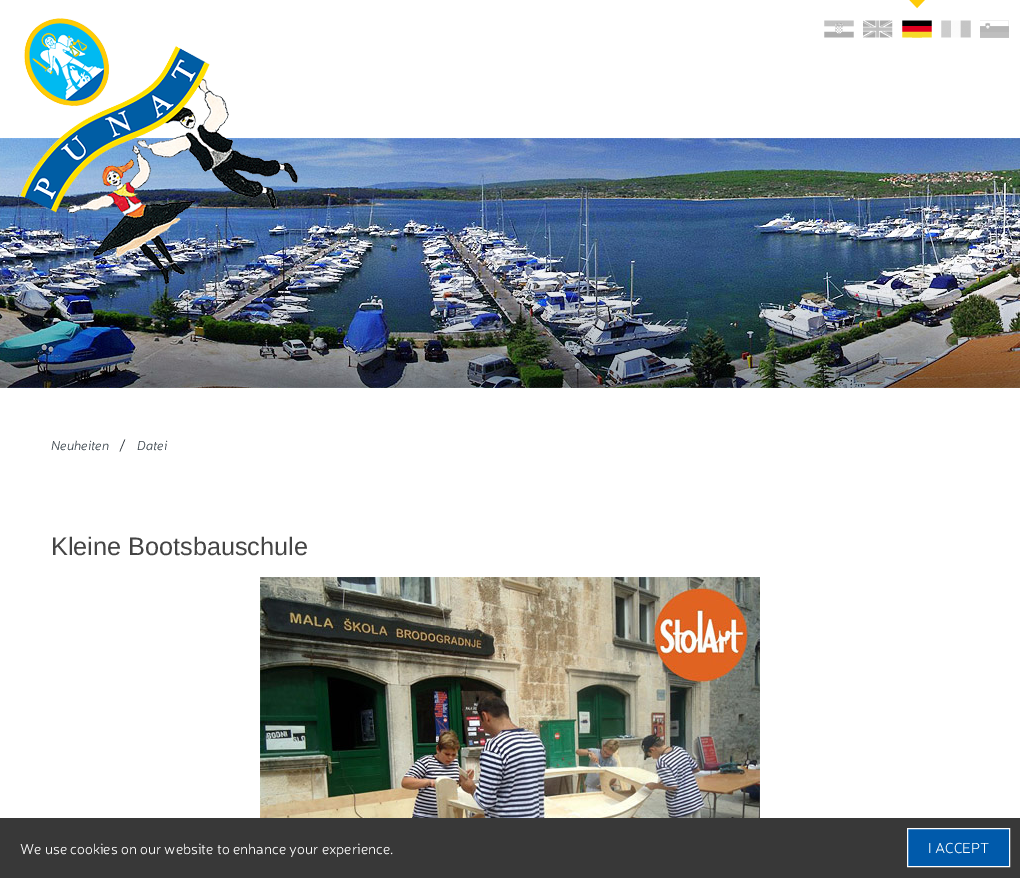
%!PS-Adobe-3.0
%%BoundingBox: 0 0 1020 878
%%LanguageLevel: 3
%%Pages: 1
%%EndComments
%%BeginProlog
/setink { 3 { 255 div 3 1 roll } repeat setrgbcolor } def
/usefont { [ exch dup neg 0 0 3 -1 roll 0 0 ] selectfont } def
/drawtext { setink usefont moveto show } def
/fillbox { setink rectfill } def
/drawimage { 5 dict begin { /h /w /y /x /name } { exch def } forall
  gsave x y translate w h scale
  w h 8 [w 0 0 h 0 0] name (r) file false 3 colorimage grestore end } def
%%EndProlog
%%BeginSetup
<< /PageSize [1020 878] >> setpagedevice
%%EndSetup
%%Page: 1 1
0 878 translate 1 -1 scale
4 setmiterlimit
0 0 1020 878 255 255 255 fillbox
(assets/img8.rgb) 0 138 1020 250 drawimage
(assets/img1.rgb) 20 18 278 266 drawimage
(assets/img2.rgb) 824 20 30 18 drawimage
(assets/img3.rgb) 863 20 30 18 drawimage
(assets/img4.rgb) 909 0 16 9 drawimage
(assets/img5.rgb) 902 20 30 18 drawimage
(assets/img6.rgb) 941 20 30 18 drawimage
(assets/img7.rgb) 980 20 29 18 drawimage
(Neuheiten) 51 450 /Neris-LightItalic 13 55 65 73 drawtext
(/) 119 450 /Neris-Light 14 35 43 50 drawtext
(Datei) 137 450 /Neris-LightItalic 13 55 65 73 drawtext
(Kleine Bootsbauschule) 51 555 /LiberationSans-Regular 25.25 68 68 68 drawtext
(assets/img9.rgb) 260 577 500 241 drawimage
0 818 1020 60 56 56 56 fillbox
(We use cookies on our website to enhance your experience.) 20 854 /Neris-Light 14.6 255 255 255 drawtext
0 90 171 setink
907.5 828.5 moveto 1009.5 828.5 lineto 1009.5 866.5 lineto 907.5 866.5 lineto closepath gsave fill grestore
255 255 255 setink
stroke
(I ACCEPT) 928 853 /Neris-Light 14.6 255 255 255 drawtext
showpage
%%EOF
